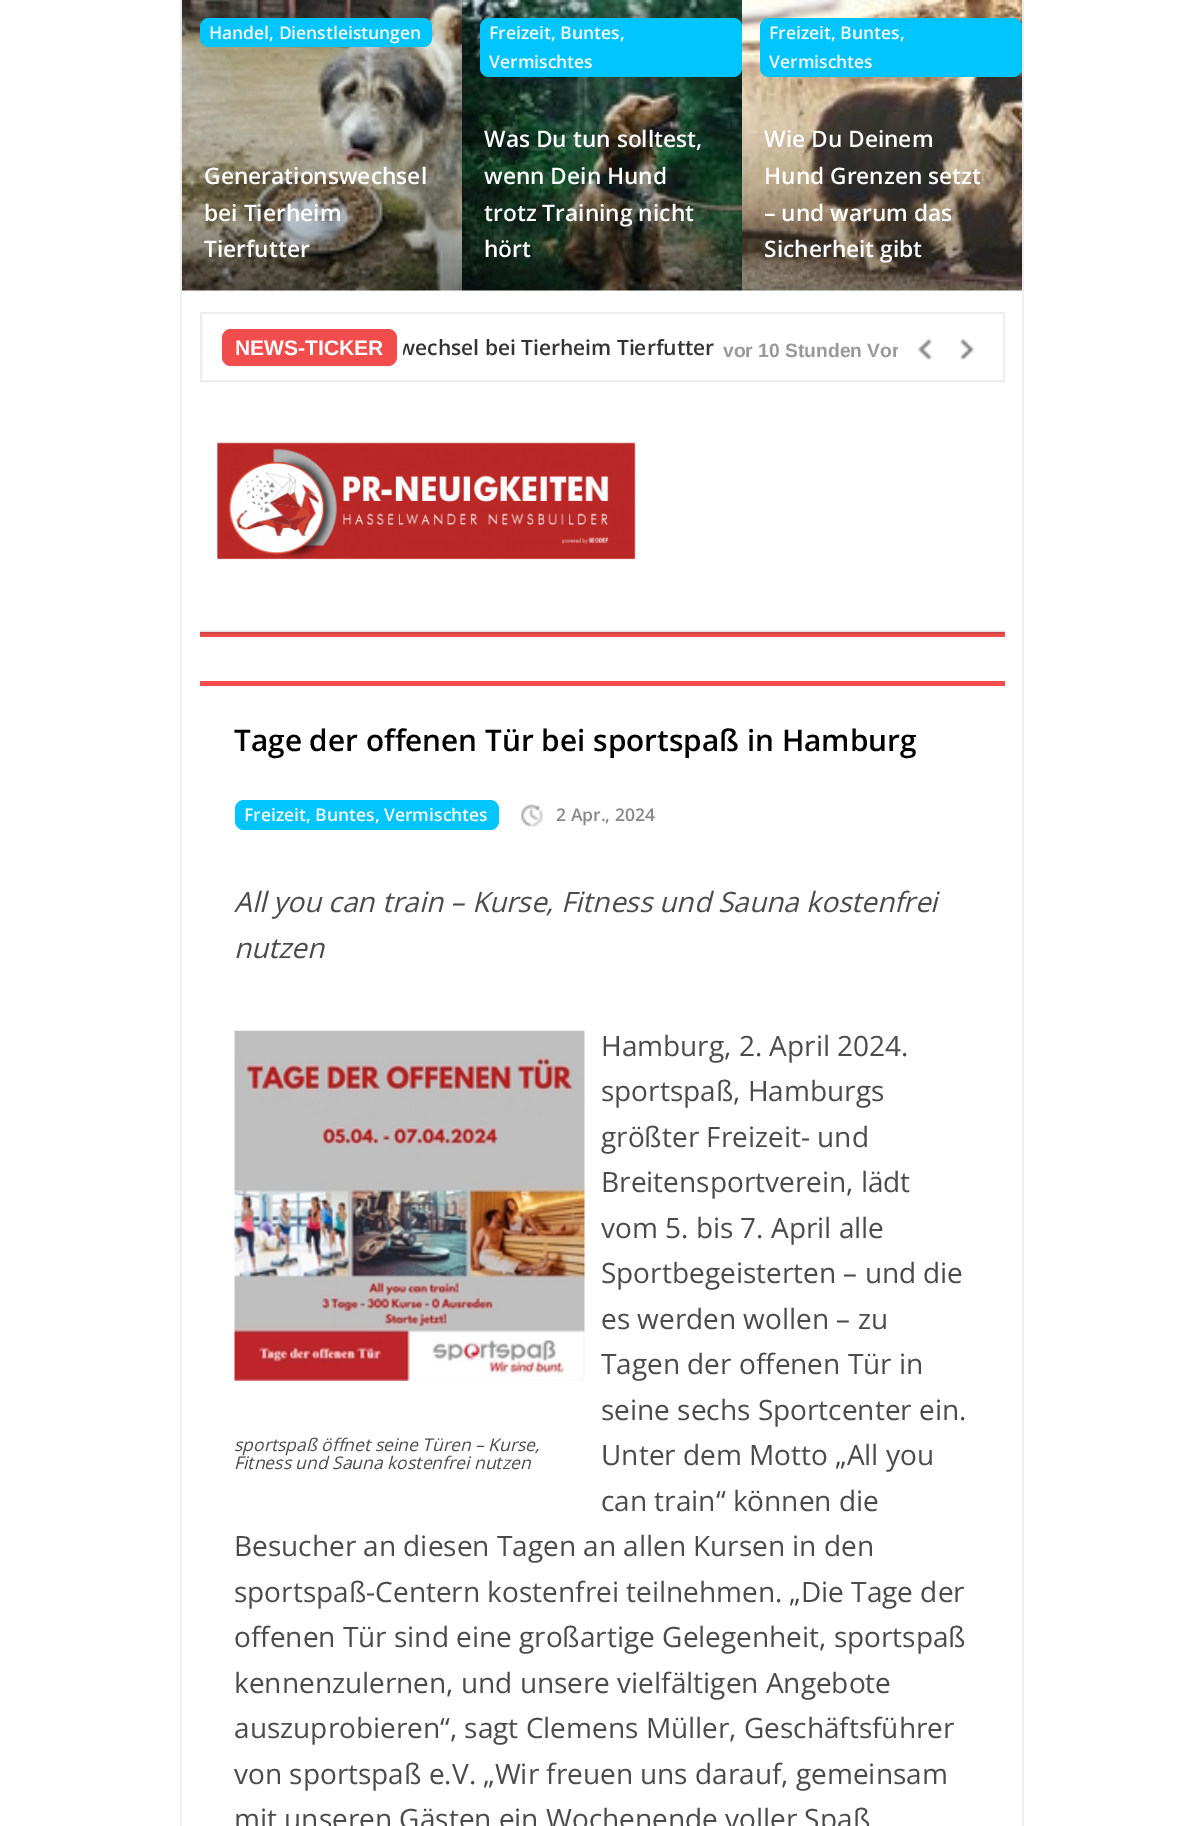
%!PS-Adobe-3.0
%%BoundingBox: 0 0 1201 1826
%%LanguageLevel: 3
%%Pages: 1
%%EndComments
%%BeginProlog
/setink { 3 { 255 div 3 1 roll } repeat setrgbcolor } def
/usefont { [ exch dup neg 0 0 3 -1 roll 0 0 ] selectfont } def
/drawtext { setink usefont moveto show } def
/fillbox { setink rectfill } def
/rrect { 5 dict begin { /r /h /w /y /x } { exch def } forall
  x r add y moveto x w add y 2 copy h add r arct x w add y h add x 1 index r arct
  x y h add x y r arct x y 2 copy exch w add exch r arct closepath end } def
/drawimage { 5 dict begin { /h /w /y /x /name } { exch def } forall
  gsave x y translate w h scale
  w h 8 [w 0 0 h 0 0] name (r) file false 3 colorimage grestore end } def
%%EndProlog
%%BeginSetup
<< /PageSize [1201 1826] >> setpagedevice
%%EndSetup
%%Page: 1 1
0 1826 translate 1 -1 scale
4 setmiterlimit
0 0 1201 1826 255 255 255 fillbox
1022 0 2 1826 238 238 238 fillbox
180 0 2 1826 238 238 238 fillbox
(assets/img1.rgb) 182 0 280 291 drawimage
0 197 255 setink
200 18 232 29 9 rrect fill
(Handel, Dienstleistungen) 209 39 /OpenSans-SemiBold 17.5 255 255 255 drawtext
(assets/img2.rgb) 182 133 280 161 drawimage
(Generationswechsel) 204 184 /OpenSans-SemiBold 22.75 255 255 255 drawtext
(bei Tierheim) 204 221 /OpenSans-SemiBold 22.75 255 255 255 drawtext
(Tierfutter) 204 257 /OpenSans-SemiBold 22.75 255 255 255 drawtext
(assets/img3.rgb) 462 0 280 291 drawimage
0 197 255 setink
480 18 262 59 9 rrect fill
(Freizeit, Buntes,) 489 39 /OpenSans-SemiBold 17.5 255 255 255 drawtext
(Vermischtes) 489 68 /OpenSans-SemiBold 17.5 255 255 255 drawtext
(assets/img4.rgb) 462 147 280 147 drawimage
(Was Du tun solltest,) 484 147 /OpenSans-SemiBold 22.75 255 255 255 drawtext
(wenn Dein Hund) 484 184 /OpenSans-SemiBold 22.75 255 255 255 drawtext
(trotz Training nicht) 484 221 /OpenSans-SemiBold 22.75 255 255 255 drawtext
(hört) 484 257 /OpenSans-SemiBold 22.75 255 255 255 drawtext
(assets/img5.rgb) 742 0 280 291 drawimage
0 197 255 setink
760 18 262 59 9 rrect fill
(Freizeit, Buntes,) 769 39 /OpenSans-SemiBold 17.5 255 255 255 drawtext
(Vermischtes) 769 68 /OpenSans-SemiBold 17.5 255 255 255 drawtext
(assets/img6.rgb) 742 133 280 161 drawimage
(Wie Du Deinem) 764 147 /OpenSans-SemiBold 22.75 255 255 255 drawtext
(Hund Grenzen setzt) 764 184 /OpenSans-SemiBold 22.75 255 255 255 drawtext
(– und warum das) 764 221 /OpenSans-SemiBold 22.75 255 255 255 drawtext
(Sicherheit gibt) 764 257 /OpenSans-SemiBold 22.75 255 255 255 drawtext
238 238 238 setink
2 setlinewidth
201 313 803 68 rectstroke
241 77 77 setink
222 329 175 37 9 rrect fill
(NEWS-TICKER) 235 355 /LiberationSans-Bold 21 255 255 255 drawtext
gsave
403 317 495 49 rectclip
(wechsel bei Tierheim Tierfutter) 398 355 /OpenSans-SemiBold 21 51 51 51 drawtext
(vor 10 Stunden Vor) 723 357 /LiberationSans-Bold 19.25 153 153 153 drawtext
grestore
(assets/img7.rgb) 917 338 15 22 drawimage
(assets/img8.rgb) 960 338 15 22 drawimage
(assets/img9.rgb) 217 442 419 118 drawimage
200 630 805 2 238 238 238 fillbox
200 632 805 5 241 77 77 fillbox
(assets/img10.rgb) 199 631 806 4 drawimage
200 681 805 5 241 77 77 fillbox
(Tage der offenen Tür bei sportspaß in Hamburg) 234 751 /OpenSans-SemiBold 29.75 0 0 0 drawtext
0 197 255 setink
235 800 264 30 9 rrect fill
(Freizeit, Buntes, Vermischtes) 244 821 /OpenSans-SemiBold 17.5 255 255 255 drawtext
(assets/img11.rgb) 521 804 22 23 drawimage
(2 Apr., 2024) 556 821 /OpenSans-SemiBold 17.5 136 136 136 drawtext
(All you can train – Kurse, Fitness und Sauna kostenfrei) 234 912 /OpenSans-Italic 28 75 75 75 drawtext
(nutzen) 234 958 /OpenSans-Italic 28 75 75 75 drawtext
(Hamburg, 2. April 2024.) 601 1056 /OpenSans-Regular 28 75 75 75 drawtext
(sportspaß, Hamburgs) 601 1101 /OpenSans-Regular 28 75 75 75 drawtext
(größter Freizeit- und) 601 1147 /OpenSans-Regular 28 75 75 75 drawtext
(Breitensportverein, lädt) 601 1192 /OpenSans-Regular 28 75 75 75 drawtext
(vom 5. bis 7. April alle) 601 1238 /OpenSans-Regular 28 75 75 75 drawtext
(Sportbegeisterten – und die) 601 1283 /OpenSans-Regular 28 75 75 75 drawtext
(es werden wollen – zu) 601 1329 /OpenSans-Regular 28 75 75 75 drawtext
(Tagen der offenen Tür in) 601 1374 /OpenSans-Regular 28 75 75 75 drawtext
(seine sechs Sportcenter ein.) 601 1420 /OpenSans-Regular 28 75 75 75 drawtext
(Unter dem Motto „All you) 601 1465 /OpenSans-Regular 28 75 75 75 drawtext
(can train“ können die) 601 1511 /OpenSans-Regular 28 75 75 75 drawtext
(Besucher an diesen Tagen an allen Kursen in den) 234 1556 /OpenSans-Regular 28 75 75 75 drawtext
(sportspaß-Centern kostenfrei teilnehmen. „Die Tage der) 234 1602 /OpenSans-Regular 28 75 75 75 drawtext
(offenen Tür sind eine großartige Gelegenheit, sportspaß) 234 1647 /OpenSans-Regular 28 75 75 75 drawtext
(kennenzulernen, und unsere vielfältigen Angebote) 234 1693 /OpenSans-Regular 28 75 75 75 drawtext
(auszuprobieren“, sagt Clemens Müller, Geschäftsführer) 234 1738 /OpenSans-Regular 28 75 75 75 drawtext
(von sportspaß e.V. „Wir freuen uns darauf, gemeinsam) 234 1784 /OpenSans-Regular 28 75 75 75 drawtext
(mit unseren Gästen ein Wochenende voller Spaß) 234 1829 /OpenSans-Regular 28 75 75 75 drawtext
(assets/img12.rgb) 234 1030 351 351 drawimage
(sportspaß öffnet seine Türen – Kurse,) 234 1451 /OpenSans-Italic 17.5 75 75 75 drawtext
(Fitness und Sauna kostenfrei nutzen) 234 1469 /OpenSans-Italic 17.5 75 75 75 drawtext
showpage
%%EOF
